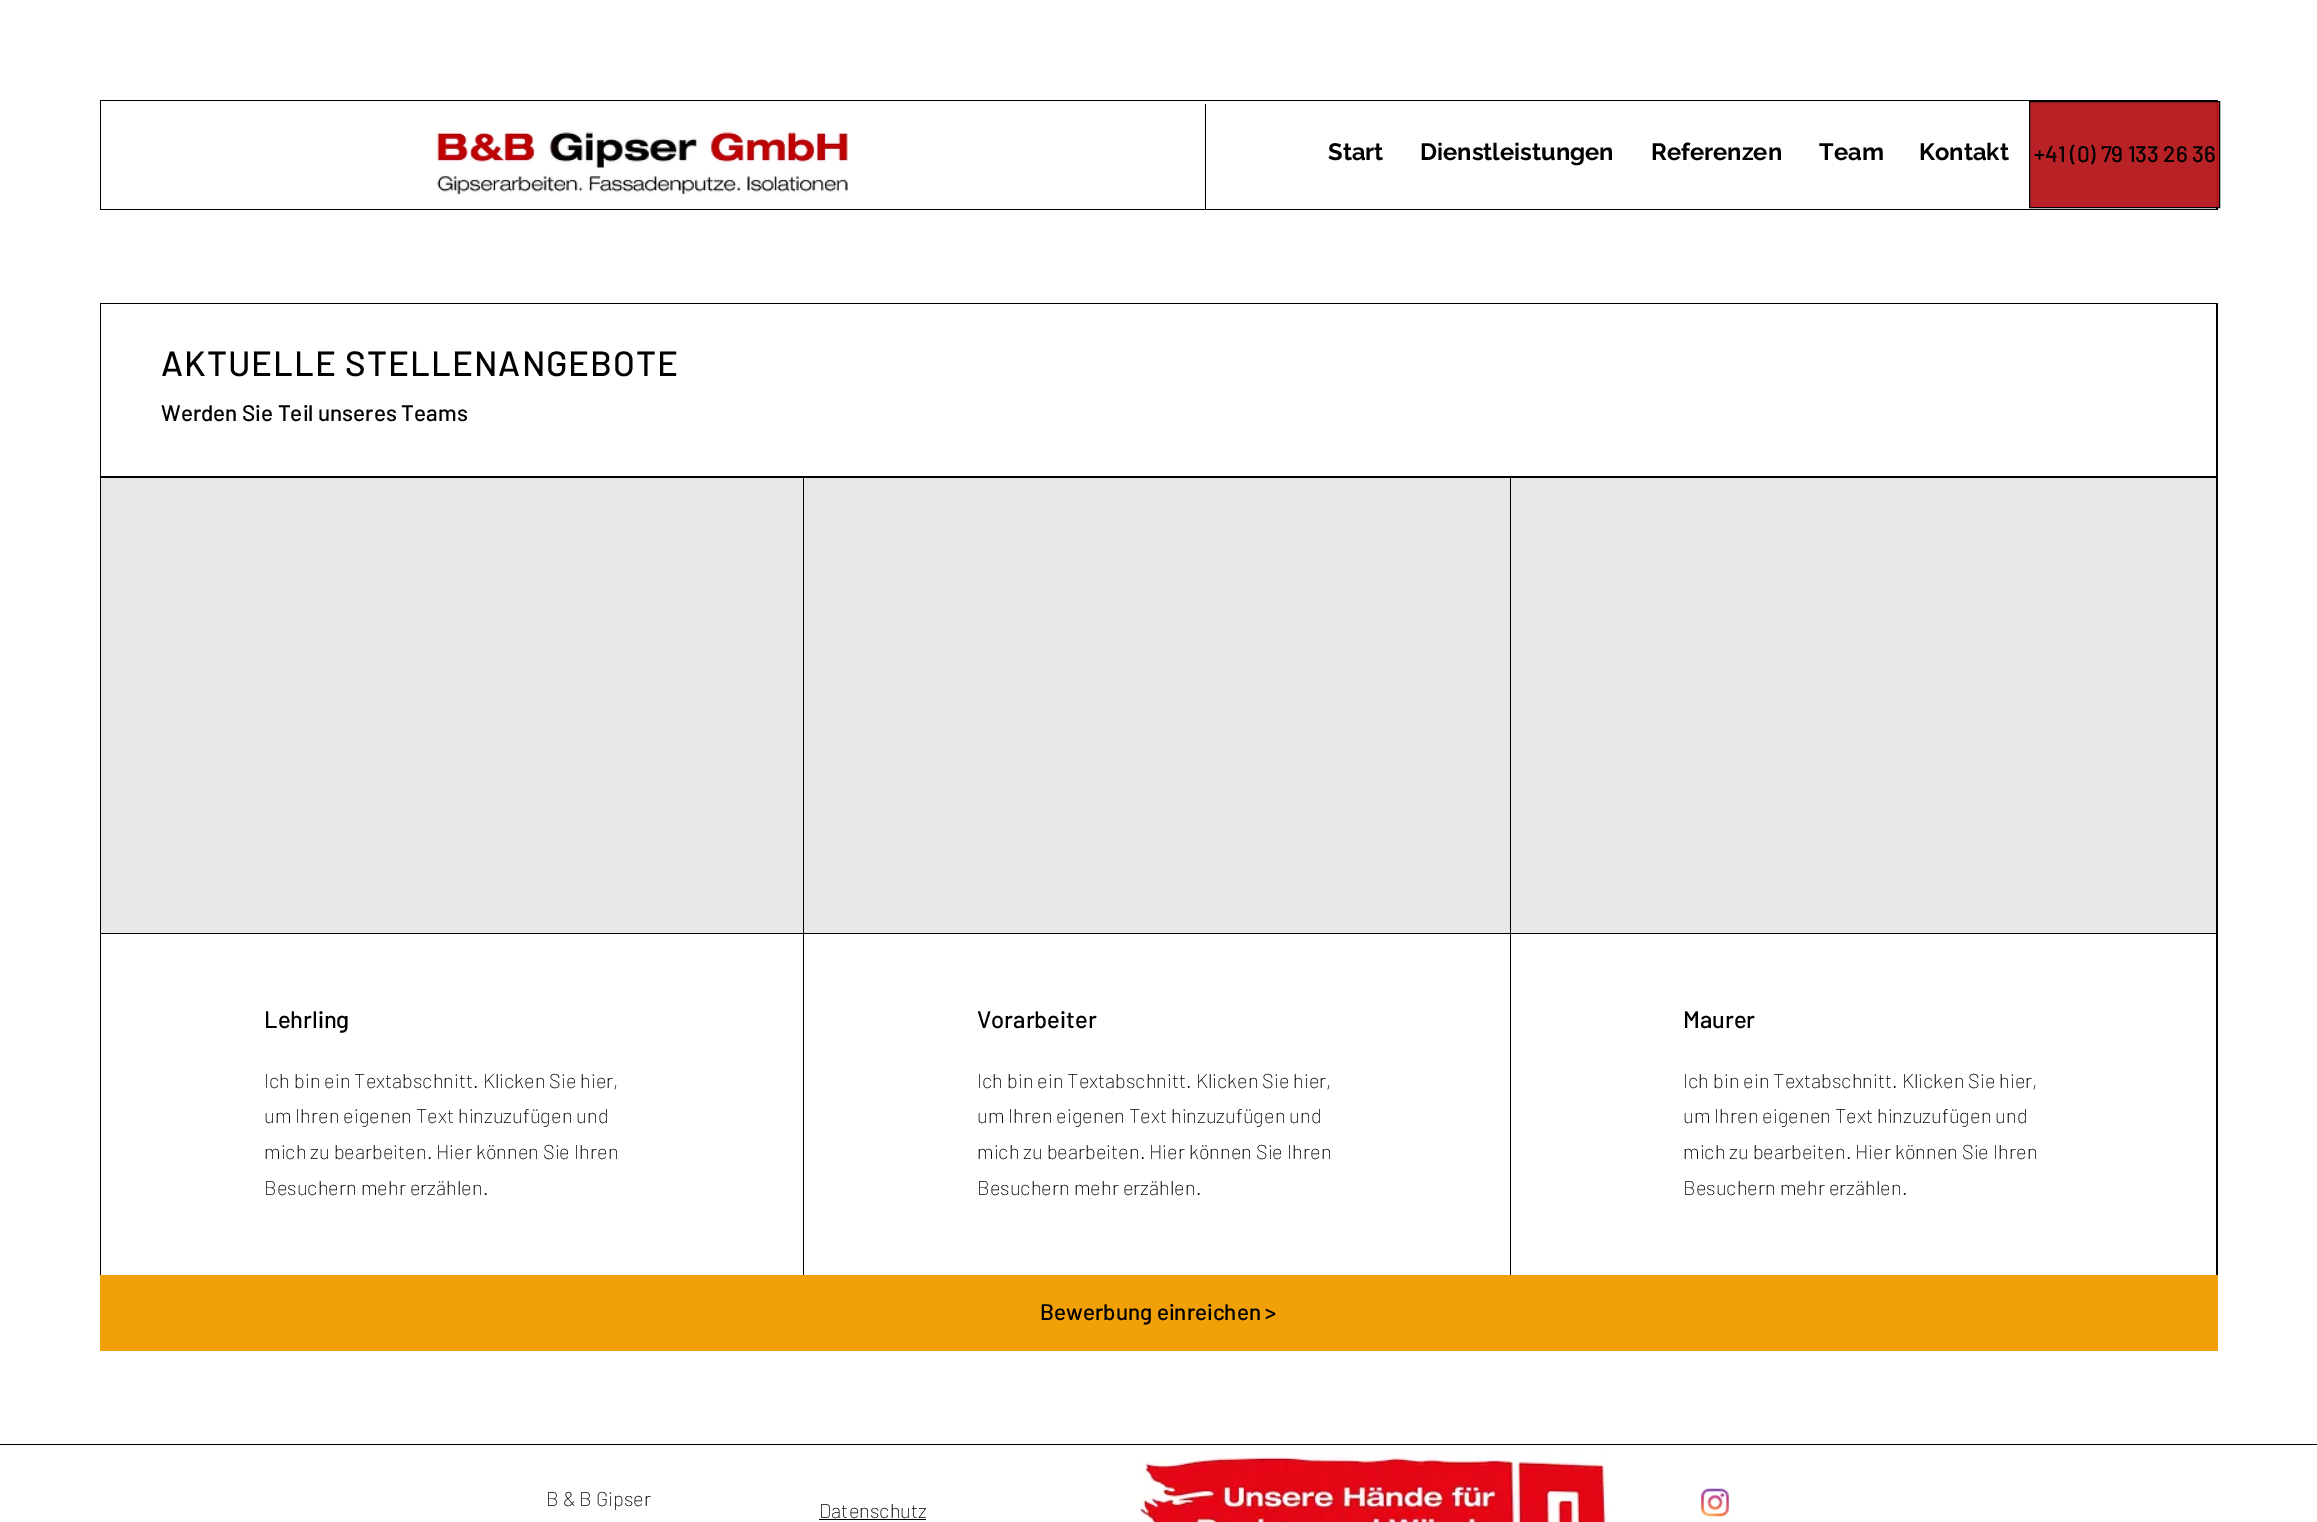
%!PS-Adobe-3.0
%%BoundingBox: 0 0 2317 1522
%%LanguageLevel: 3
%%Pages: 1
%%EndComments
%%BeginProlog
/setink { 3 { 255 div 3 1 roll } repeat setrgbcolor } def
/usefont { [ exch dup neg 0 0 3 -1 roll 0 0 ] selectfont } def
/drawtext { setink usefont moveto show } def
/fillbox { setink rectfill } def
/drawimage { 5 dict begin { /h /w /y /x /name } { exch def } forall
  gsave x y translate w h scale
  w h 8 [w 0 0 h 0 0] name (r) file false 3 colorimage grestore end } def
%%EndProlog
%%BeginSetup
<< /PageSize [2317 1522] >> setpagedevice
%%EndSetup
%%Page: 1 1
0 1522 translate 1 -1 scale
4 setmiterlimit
0 0 2317 1522 255 255 255 fillbox
2218 102 1 105 184 33 37 fillbox
100 100 2118 110 0 0 0 fillbox
101 101 2115 108 255 255 255 fillbox
(assets/img1.rgb) 435 130 413 65 drawimage
2216 102 2 105 174 23 27 fillbox
2030 102 186 105 184 33 37 fillbox
1205 104 1 105 0 0 0 fillbox
(Start) 1328 160 /Raleway-Bold 23.75 0 0 0 drawtext
(Dienstleistungen) 1420 160 /Raleway-Bold 23.75 0 0 0 drawtext
(Referenzen) 1651 160 /Raleway-Bold 23.75 0 0 0 drawtext
(Team) 1819 160 /Raleway-Bold 23.75 0 0 0 drawtext
(Kontakt) 1919 160 /Raleway-Bold 23.75 0 0 0 drawtext
2029.5 101.5 190 106 rectstroke
(+41 \(0\) 79 133 26 36) 2034 162 /Barlow-Medium 22.5 0 0 0 drawtext
100 303 2118 972 0 0 0 fillbox
101 304 2115 172 255 255 255 fillbox
/Barlow-Medium 35 usefont
0 0 0 setink
161 376 moveto 1.05 0 (AKTUELLE STELLENANGEBOTE) ashow
(Werden Sie Teil unseres Teams) 161 421 /Barlow-Medium 22.5 0 0 0 drawtext
101 478 702 455 232 230 230 fillbox
804 478 706 455 232 230 230 fillbox
1511 478 705 455 232 230 230 fillbox
101 934 702 341 255 255 255 fillbox
(Lehrling) 264 1028 /Barlow-Medium 23.75 0 0 0 drawtext
(Ich bin ein Textabschnitt. Klicken Sie hier,) 264 1088 /Barlow-ExtraLight 20 0 0 0 drawtext
(um Ihren eigenen Text hinzuzufügen und) 264 1123 /Barlow-ExtraLight 20 0 0 0 drawtext
(mich zu bearbeiten. Hier können Sie Ihren) 264 1159 /Barlow-ExtraLight 20 0 0 0 drawtext
(Besuchern mehr erzählen.) 264 1195 /Barlow-ExtraLight 20 0 0 0 drawtext
804 934 706 341 255 255 255 fillbox
(Vorarbeiter) 977 1028 /Barlow-Medium 23.75 0 0 0 drawtext
(Ich bin ein Textabschnitt. Klicken Sie hier,) 977 1088 /Barlow-ExtraLight 20 0 0 0 drawtext
(um Ihren eigenen Text hinzuzufügen und) 977 1123 /Barlow-ExtraLight 20 0 0 0 drawtext
(mich zu bearbeiten. Hier können Sie Ihren) 977 1159 /Barlow-ExtraLight 20 0 0 0 drawtext
(Besuchern mehr erzählen.) 977 1195 /Barlow-ExtraLight 20 0 0 0 drawtext
1511 934 705 341 255 255 255 fillbox
(Maurer) 1683 1028 /Barlow-Medium 23.75 0 0 0 drawtext
(Ich bin ein Textabschnitt. Klicken Sie hier,) 1683 1088 /Barlow-ExtraLight 20 0 0 0 drawtext
(um Ihren eigenen Text hinzuzufügen und) 1683 1123 /Barlow-ExtraLight 20 0 0 0 drawtext
(mich zu bearbeiten. Hier können Sie Ihren) 1683 1159 /Barlow-ExtraLight 20 0 0 0 drawtext
(Besuchern mehr erzählen.) 1683 1195 /Barlow-ExtraLight 20 0 0 0 drawtext
100 1275 2118 76 242 160 7 fillbox
(Bewerbung einreichen >) 1040 1320 /Barlow-Medium 22.5 0 0 0 drawtext
0 1444 2317 1 0 0 0 fillbox
(B & B Gipser) 546 1506 /Barlow-ExtraLight 20 0 0 0 drawtext
(assets/img2.rgb) 1139 1451 470 71 drawimage
(assets/img3.rgb) 1701 1488 28 29 drawimage
(Datenschutz) 819 1518 /Barlow-ExtraLight 20 0 0 0 drawtext
819 1519 107 1 0 0 0 fillbox
showpage
%%EOF
